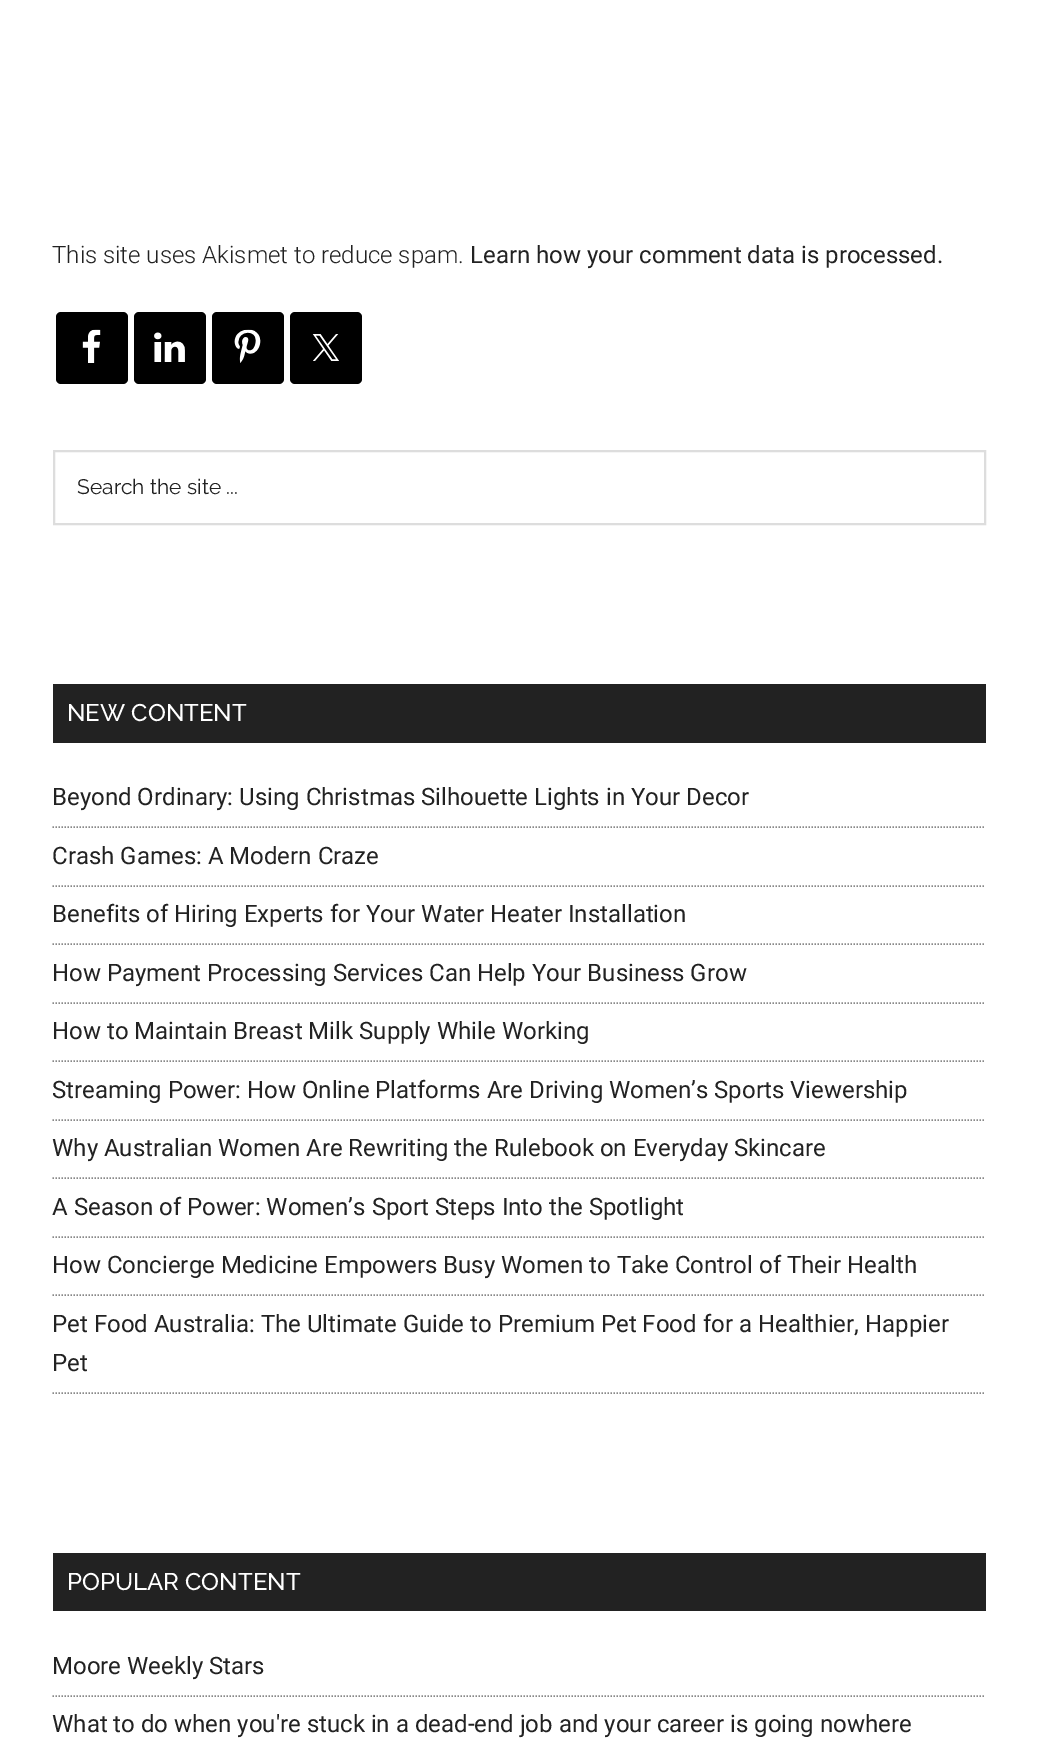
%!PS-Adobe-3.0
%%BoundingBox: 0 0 1038 1748
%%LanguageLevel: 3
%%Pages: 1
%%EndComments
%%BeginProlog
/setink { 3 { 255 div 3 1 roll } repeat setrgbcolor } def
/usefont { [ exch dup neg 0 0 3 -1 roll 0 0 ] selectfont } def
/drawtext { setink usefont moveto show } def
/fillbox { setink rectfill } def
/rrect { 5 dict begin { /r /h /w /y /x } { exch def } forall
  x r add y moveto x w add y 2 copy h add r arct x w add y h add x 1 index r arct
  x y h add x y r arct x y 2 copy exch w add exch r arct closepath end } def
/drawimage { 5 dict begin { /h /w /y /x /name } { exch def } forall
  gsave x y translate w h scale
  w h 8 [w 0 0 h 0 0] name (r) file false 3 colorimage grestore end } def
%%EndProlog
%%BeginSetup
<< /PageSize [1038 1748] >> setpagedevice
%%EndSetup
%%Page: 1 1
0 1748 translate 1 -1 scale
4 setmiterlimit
0 0 1038 1748 255 255 255 fillbox
(This site uses Akismet to reduce spam.) 52 263 /Roboto-Light 24 34 34 34 drawtext
(Learn how your comment data is processed.) 470 263 /Roboto-Regular 24 34 34 34 drawtext
0 0 0 setink
56 312 72 72 5 rrect fill
(assets/img1.rgb) 82 329 19 34 drawimage
134 312 72 72 5 rrect fill
(assets/img2.rgb) 154 332 31 30 drawimage
212 312 72 72 5 rrect fill
(assets/img3.rgb) 234 329 27 34 drawimage
290 312 72 72 5 rrect fill
(assets/img4.rgb) 312 334 27 27 drawimage
221 221 221 setink
2 setlinewidth
54 451 931 73 rectstroke
(Search the site ...) 77 494 /Raleway-Regular 21 34 34 34 drawtext
53 684 933 59 34 34 34 fillbox
(NEW CONTENT) 67 721 /Raleway-Medium 24 255 255 255 drawtext
136 136 136 setink
1.5 setlinewidth
[1.5 1.5] 0 setdash
52.5 827 moveto 985.5 827 lineto stroke
(Beyond Ordinary: Using Christmas Silhouette Lights in Your Decor) 52 805 /Roboto-Regular 24 34 34 34 drawtext
136 136 136 setink
52.5 886 moveto 985.5 886 lineto stroke
(Crash Games: A Modern Craze) 52 864 /Roboto-Regular 24 34 34 34 drawtext
136 136 136 setink
52.5 944 moveto 985.5 944 lineto stroke
(Benefits of Hiring Experts for Your Water Heater Installation) 52 922 /Roboto-Regular 24 34 34 34 drawtext
136 136 136 setink
52.5 1003 moveto 985.5 1003 lineto stroke
(How Payment Processing Services Can Help Your Business Grow) 52 981 /Roboto-Regular 24 34 34 34 drawtext
136 136 136 setink
52.5 1061 moveto 985.5 1061 lineto stroke
(How to Maintain Breast Milk Supply While Working) 52 1039 /Roboto-Regular 24 34 34 34 drawtext
136 136 136 setink
52.5 1120 moveto 985.5 1120 lineto stroke
(Streaming Power: How Online Platforms Are Driving Women’s Sports Viewership) 52 1098 /Roboto-Regular 24 34 34 34 drawtext
136 136 136 setink
52.5 1178 moveto 985.5 1178 lineto stroke
(Why Australian Women Are Rewriting the Rulebook on Everyday Skincare) 52 1156 /Roboto-Regular 24 34 34 34 drawtext
136 136 136 setink
52.5 1237 moveto 985.5 1237 lineto stroke
(A Season of Power: Women’s Sport Steps Into the Spotlight) 52 1215 /Roboto-Regular 24 34 34 34 drawtext
136 136 136 setink
52.5 1295 moveto 985.5 1295 lineto stroke
(How Concierge Medicine Empowers Busy Women to Take Control of Their Health) 52 1273 /Roboto-Regular 24 34 34 34 drawtext
136 136 136 setink
52.5 1393 moveto 985.5 1393 lineto stroke
(Pet Food Australia: The Ultimate Guide to Premium Pet Food for a Healthier, Happier) 52 1332 /Roboto-Regular 24 34 34 34 drawtext
(Pet) 52 1371 /Roboto-Regular 24 34 34 34 drawtext
53 1553 933 58 34 34 34 fillbox
(POPULAR CONTENT) 67 1590 /Raleway-Medium 24 255 255 255 drawtext
136 136 136 setink
52.5 1696 moveto 985.5 1696 lineto stroke
(Moore Weekly Stars) 52 1674 /Roboto-Regular 24 34 34 34 drawtext
(What to do when you're stuck in a dead-end job and your career is going nowhere) 52 1732 /Roboto-Regular 24 34 34 34 drawtext
showpage
%%EOF
